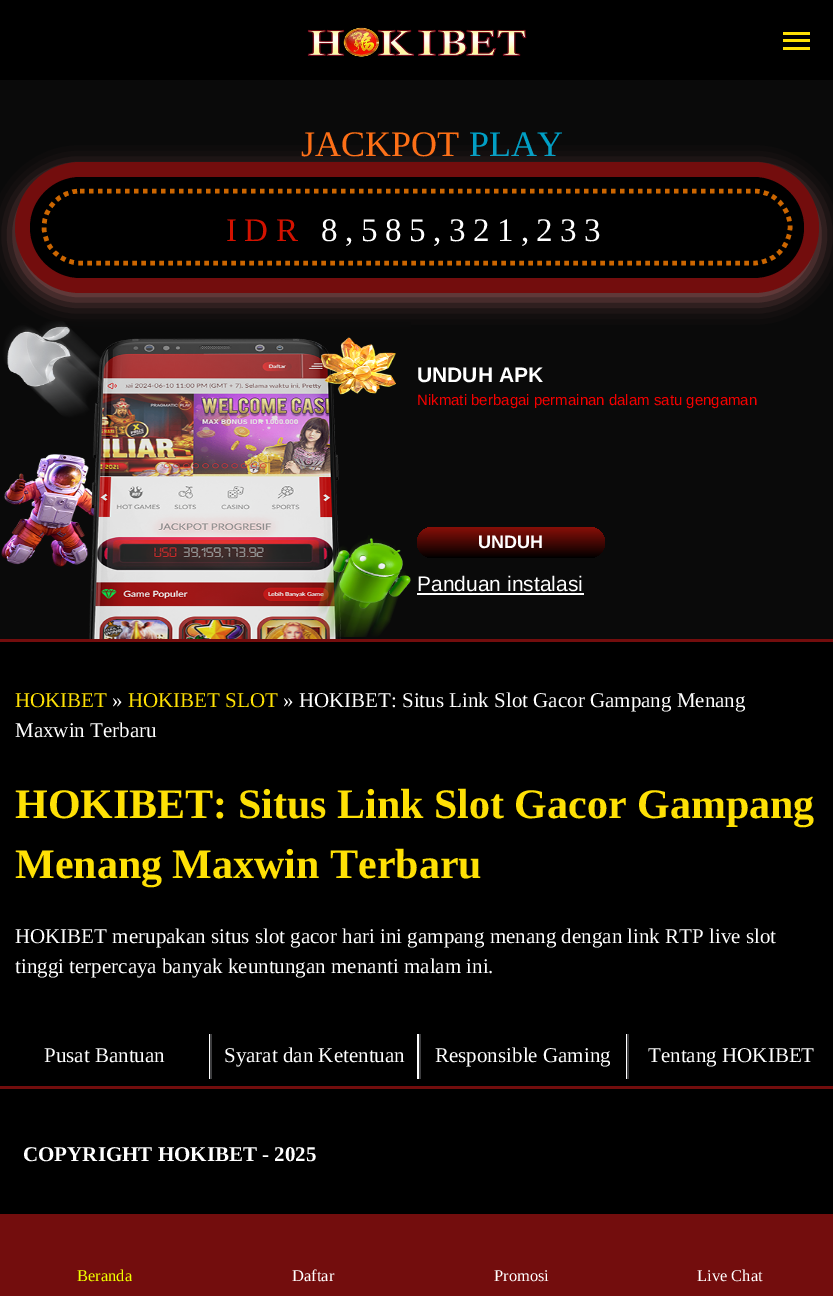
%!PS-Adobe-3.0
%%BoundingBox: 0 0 833 1296
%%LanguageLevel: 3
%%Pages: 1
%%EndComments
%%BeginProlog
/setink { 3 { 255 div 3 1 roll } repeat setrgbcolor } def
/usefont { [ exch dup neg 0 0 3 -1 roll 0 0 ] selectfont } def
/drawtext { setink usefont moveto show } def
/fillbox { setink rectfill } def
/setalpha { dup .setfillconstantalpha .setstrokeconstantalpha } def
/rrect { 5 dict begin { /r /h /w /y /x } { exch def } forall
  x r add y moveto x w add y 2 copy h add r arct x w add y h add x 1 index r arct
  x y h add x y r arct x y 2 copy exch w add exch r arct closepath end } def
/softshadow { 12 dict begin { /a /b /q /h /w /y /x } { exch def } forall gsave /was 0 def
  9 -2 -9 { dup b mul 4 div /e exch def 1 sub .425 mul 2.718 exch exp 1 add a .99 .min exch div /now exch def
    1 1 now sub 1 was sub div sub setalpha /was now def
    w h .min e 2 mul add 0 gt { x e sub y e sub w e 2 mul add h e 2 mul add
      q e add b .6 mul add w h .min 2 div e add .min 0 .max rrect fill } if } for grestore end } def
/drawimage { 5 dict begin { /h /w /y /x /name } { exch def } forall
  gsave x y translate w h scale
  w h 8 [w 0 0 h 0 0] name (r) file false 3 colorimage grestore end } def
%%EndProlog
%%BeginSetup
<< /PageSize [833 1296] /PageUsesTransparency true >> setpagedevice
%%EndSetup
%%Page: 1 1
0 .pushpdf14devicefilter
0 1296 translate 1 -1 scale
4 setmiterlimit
0 0 833 1296 10 10 10 fillbox
0 0 833 80 0 0 0 fillbox
(assets/img1.rgb) 307 27 220 30 drawimage
783 39 27 3 254 224 5 fillbox
783 32 27 3 254 224 5 fillbox
783 47 27 3 254 224 5 fillbox
(JACKPOT) 301 156 /LiberationSerif-Regular 36 253 111 22 drawtext
(PLAY) 469 156 /LiberationSerif-Regular 36 0 159 197 drawtext
255 144 144 setink
15 170 804 130 65 11 0.5 softshadow
115 13 13 setink
15 162 804 131 65.5 rrect fill
0 0 0 setink
30 177 774 101 50.5 rrect fill
204 102 0 setink
4.5 setlinewidth
[4.5 4.5] 0 setdash
80 191 moveto 754 191 lineto 773.5 191 790 207.5 790 227 curveto 790 247 773.5 263 754 263 curveto 80 263 lineto 60.5 263 44 247 44 227 curveto 44 207.5 60.5 191 80 191 curveto closepath stroke
/LiberationSerif-Regular 33 usefont
211 18 0 setink
226 241 moveto 7.5 0 (IDR) ashow
255 255 255 setink
321 241 moveto 7.5 0 (8,585,321,233) ashow
(assets/img2.rgb) 1 321 410 318 drawimage
(UNDUH APK) 417 382 /LiberationSans-Bold 21 255 255 255 drawtext
(Nikmati berbagai permainan dalam satu gengaman) 417 405 /LiberationSans-Regular 15 244 0 0 drawtext
gsave 417 527 188 31 15.5 rrect clip newpath
<< /ShadingType 2 /ColorSpace /DeviceRGB /Coords [511 527 511 558] /Extend [true true] /Function << /FunctionType 2 /Domain [0 1] /C0 [0.537 0.059 0.031] /C1 [0 0 0] /N 1 >> >> shfill grestore
(UNDUH) 478 548 /LiberationSans-Bold 18 255 255 255 drawtext
(Panduan instalasi) 417 591 /LiberationSans-Regular 21 255 255 255 drawtext
417 593 167 2 255 255 255 fillbox
0 639 833 3 115 13 13 fillbox
0 642 833 444 0 0 0 fillbox
(HOKIBET) 15 707 /LiberationSerif-Regular 21 254 224 5 drawtext
(») 112 707 /LiberationSerif-Regular 21 255 255 255 drawtext
(HOKIBET SLOT) 128 707 /LiberationSerif-Regular 21 254 224 5 drawtext
(» HOKIBET: Situs Link Slot Gacor Gampang Menang) 283 707 /LiberationSerif-Regular 21 255 255 255 drawtext
(Maxwin Terbaru) 15 737 /LiberationSerif-Regular 21 255 255 255 drawtext
(HOKIBET: Situs Link Slot Gacor Gampang) 15 818 /LiberationSerif-Bold 42 254 224 5 drawtext
(Menang Maxwin Terbaru) 15 878 /LiberationSerif-Bold 42 254 224 5 drawtext
(HOKIBET merupakan situs slot gacor hari ini gampang menang dengan link RTP live slot) 15 943 /LiberationSerif-Regular 21 255 255 255 drawtext
(tinggi terpercaya banyak keuntungan menanti malam ini.) 15 973 /LiberationSerif-Regular 21 255 255 255 drawtext
(Pusat Bantuan) 44 1062 /LiberationSerif-Regular 21 255 255 255 drawtext
209 1034 1 45 255 255 255 fillbox
210 1034 2 45 60 60 62 fillbox
(Syarat dan Ketentuan) 224 1062 /LiberationSerif-Regular 21 255 255 255 drawtext
417 1034 2 45 255 255 255 fillbox
419 1034 2 45 60 60 62 fillbox
(Responsible Gaming) 435 1062 /LiberationSerif-Regular 21 255 255 255 drawtext
626 1034 1 45 255 255 255 fillbox
627 1034 2 45 60 60 62 fillbox
(Tentang HOKIBET) 648 1062 /LiberationSerif-Regular 21 255 255 255 drawtext
0 1089 833 125 0 0 0 fillbox
0 1086 833 3 115 13 13 fillbox
(COPYRIGHT HOKIBET - 2025) 23 1161 /LiberationSerif-Bold 21 255 255 255 drawtext
0 1214 833 82 115 13 13 fillbox
(Beranda) 77 1281 /LiberationSerif-Regular 16.5 239 255 0 drawtext
(Daftar) 292 1281 /LiberationSerif-Regular 16.5 255 255 255 drawtext
(Promosi) 494 1281 /LiberationSerif-Regular 16.5 255 255 255 drawtext
(Live Chat) 697 1281 /LiberationSerif-Regular 16.5 255 255 255 drawtext
.poppdf14devicefilter showpage
%%EOF
